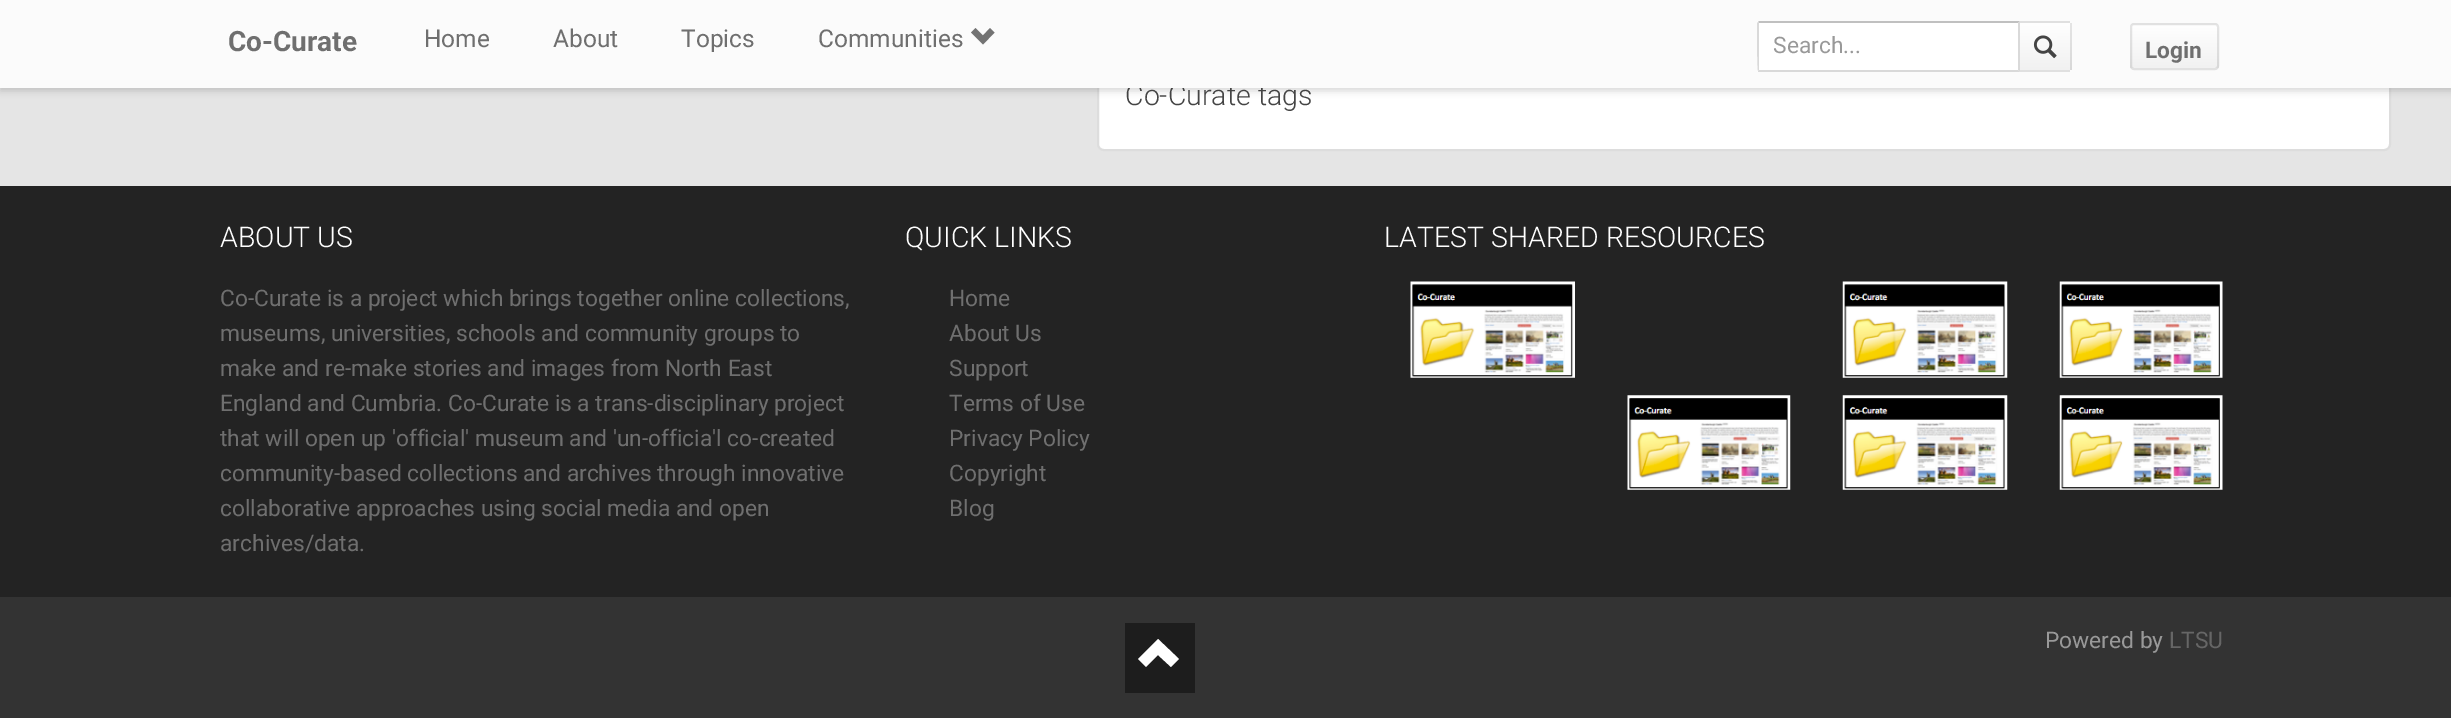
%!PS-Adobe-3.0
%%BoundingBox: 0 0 2451 718
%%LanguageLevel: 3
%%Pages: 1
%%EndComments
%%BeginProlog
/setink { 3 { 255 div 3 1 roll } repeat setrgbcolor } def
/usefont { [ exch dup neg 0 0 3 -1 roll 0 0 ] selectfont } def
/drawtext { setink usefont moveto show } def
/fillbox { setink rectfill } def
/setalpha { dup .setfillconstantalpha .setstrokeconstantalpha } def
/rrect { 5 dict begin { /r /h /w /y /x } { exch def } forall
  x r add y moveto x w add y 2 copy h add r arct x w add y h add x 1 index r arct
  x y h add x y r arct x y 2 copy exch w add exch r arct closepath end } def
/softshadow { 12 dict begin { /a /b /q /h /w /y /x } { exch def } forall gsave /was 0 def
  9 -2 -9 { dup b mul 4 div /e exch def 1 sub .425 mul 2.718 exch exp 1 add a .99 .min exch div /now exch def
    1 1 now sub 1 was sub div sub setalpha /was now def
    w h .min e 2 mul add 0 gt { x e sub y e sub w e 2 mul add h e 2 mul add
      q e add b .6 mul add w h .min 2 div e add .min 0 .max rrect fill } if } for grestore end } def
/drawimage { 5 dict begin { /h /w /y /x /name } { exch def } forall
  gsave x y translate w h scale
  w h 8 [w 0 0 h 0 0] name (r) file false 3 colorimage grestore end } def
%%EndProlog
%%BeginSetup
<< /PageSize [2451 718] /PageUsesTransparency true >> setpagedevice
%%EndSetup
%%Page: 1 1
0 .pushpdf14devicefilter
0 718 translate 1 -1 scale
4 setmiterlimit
0 0 2451 718 229 229 229 fillbox
255 255 255 setink
1098 43 moveto 2390 43 lineto 2390 144 lineto 2390 147.5 2387.5 150 2384 150 curveto 1104 150 lineto 1100.5 150 1098 147.5 1098 144 curveto closepath gsave fill grestore
221 221 221 setink
2 setlinewidth
stroke
0 0 0 setink
0 4 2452 87 0 3.5 0.15 softshadow
(Co-Curate tags) 1125 105 /Roboto-Light 28.5 68 68 68 drawtext
0 0 2451 88 251 251 251 fillbox
(Co-Curate) 228 51 /Roboto-Bold 28 111 111 111 drawtext
(Home) 424 47 /Roboto-Regular 24.5 111 111 111 drawtext
(About) 553 47 /Roboto-Regular 24.5 111 111 111 drawtext
(Topics) 681 47 /Roboto-Regular 24.5 111 111 111 drawtext
(Communities) 818 47 /Roboto-Regular 24.5 111 111 111 drawtext
115 115 115 setink
971 32.5 moveto 983 44.5 lineto 994.5 32.5 lineto 990 28 lineto 983 35.5 lineto 975.5 28 lineto closepath fill
255 255 255 setink
1759 21 moveto 2020 21 lineto 2020 72 lineto 1759 72 lineto 1758 72 1757 71 1757 70 curveto 1757 23 lineto 1757 22 1758 21 1759 21 curveto closepath fill
192 192 192 setink
1759 21 moveto 1758 22 lineto 1759 23 lineto 2018 23 lineto 2020 21 lineto closepath fill
217 217 217 setink
2020 21 moveto 2018 23 lineto 2018 70 lineto 2020 72 lineto closepath fill
2020 72 moveto 1758 72 lineto 1758 71 lineto 1759 70 lineto 2018 70 lineto closepath fill
1759 23 moveto 1758 22 lineto 1757 23 lineto 1757 27 1757 70 1758 71 curveto 1759 70 lineto closepath fill
(Search...) 1773 53 /Roboto-Regular 22.75 153 153 153 drawtext
gsave 2020 23 moveto 2072 23 lineto 2072 70 lineto 2020 70 lineto closepath clip newpath
<< /ShadingType 2 /ColorSpace /DeviceRGB /Coords [2045 23 2045 70] /Extend [true true] /Function << /FunctionType 2 /Domain [0 1] /C0 [1 1 1] /C1 [0.945 0.945 0.945] /N 1 >> >> shfill grestore
2020 21 50 2 224 224 224 fillbox
0.1 setalpha
2070 23 2 47 0 0 0 fillbox
1 setalpha
2020 70 50 2 224 224 224 fillbox
(assets/img1.rgb) 2033 35 24 24 drawimage
gsave
2130 23 89 47 4 rrect clip newpath
gsave 2130 25 moveto 2219 25 lineto 2219 68 lineto 2130 68 lineto closepath clip newpath
<< /ShadingType 2 /ColorSpace /DeviceRGB /Coords [2174 24 2174 68] /Extend [true true] /Function << /FunctionType 2 /Domain [0 1] /C0 [1 1 1] /C1 [0.945 0.945 0.945] /N 1 >> >> shfill grestore
grestore
0.1 setalpha
0 0 0 setink
2131 24 87 45 3 rrect stroke
1 setalpha
(Login) 2145 58 /Roboto-Bold 22.75 111 111 111 drawtext
0 186 2451 411 35 35 35 fillbox
(ABOUT US) 220 247 /Roboto-Light 28.5 255 255 255 drawtext
(Co-Curate is a project which brings together online collections,) 220 306 /Roboto-Regular 22.75 111 111 111 drawtext
(museums, universities, schools and community groups to) 220 341 /Roboto-Regular 22.75 111 111 111 drawtext
(make and re-make stories and images from North East) 220 376 /Roboto-Regular 22.75 111 111 111 drawtext
(England and Cumbria. Co-Curate is a trans-disciplinary project) 220 411 /Roboto-Regular 22.75 111 111 111 drawtext
(that will open up 'official' museum and 'un-officia'l co-created) 220 446 /Roboto-Regular 22.75 111 111 111 drawtext
(community-based collections and archives through innovative) 220 481 /Roboto-Regular 22.75 111 111 111 drawtext
(collaborative approaches using social media and open) 220 516 /Roboto-Regular 22.75 111 111 111 drawtext
(archives/data.) 220 551 /Roboto-Regular 22.75 111 111 111 drawtext
(QUICK LINKS) 905 247 /Roboto-Light 28.5 255 255 255 drawtext
(Home) 949 306 /Roboto-Regular 22.75 111 111 111 drawtext
(About Us) 949 341 /Roboto-Regular 22.75 111 111 111 drawtext
(Support) 949 376 /Roboto-Regular 22.75 111 111 111 drawtext
(Terms of Use) 949 411 /Roboto-Regular 22.75 111 111 111 drawtext
(Privacy Policy) 949 446 /Roboto-Regular 22.75 111 111 111 drawtext
(Copyright) 949 481 /Roboto-Regular 22.75 111 111 111 drawtext
(Blog) 949 516 /Roboto-Regular 22.75 111 111 111 drawtext
(LATEST SHARED RESOURCES) 1384 247 /Roboto-Light 28.5 255 255 255 drawtext
(assets/img2.rgb) 1410 281 165 97 drawimage
(assets/img3.rgb) 1842 281 166 97 drawimage
(assets/img4.rgb) 2059 281 164 97 drawimage
(assets/img5.rgb) 1627 395 164 95 drawimage
(assets/img6.rgb) 1842 395 166 95 drawimage
(assets/img7.rgb) 2059 395 164 95 drawimage
0 597 2451 121 51 51 51 fillbox
1125 623 70 70 29 29 29 fillbox
255 255 255 setink
1138 659 moveto 1146 667 lineto 1158 655 lineto 1171 667 lineto 1179 659 lineto 1158 639 lineto closepath fill
(Powered by) 2045 648 /Roboto-Regular 22.75 153 153 153 drawtext
(LTSU) 2169 648 /Roboto-Regular 22.75 102 102 102 drawtext
.poppdf14devicefilter showpage
%%EOF
